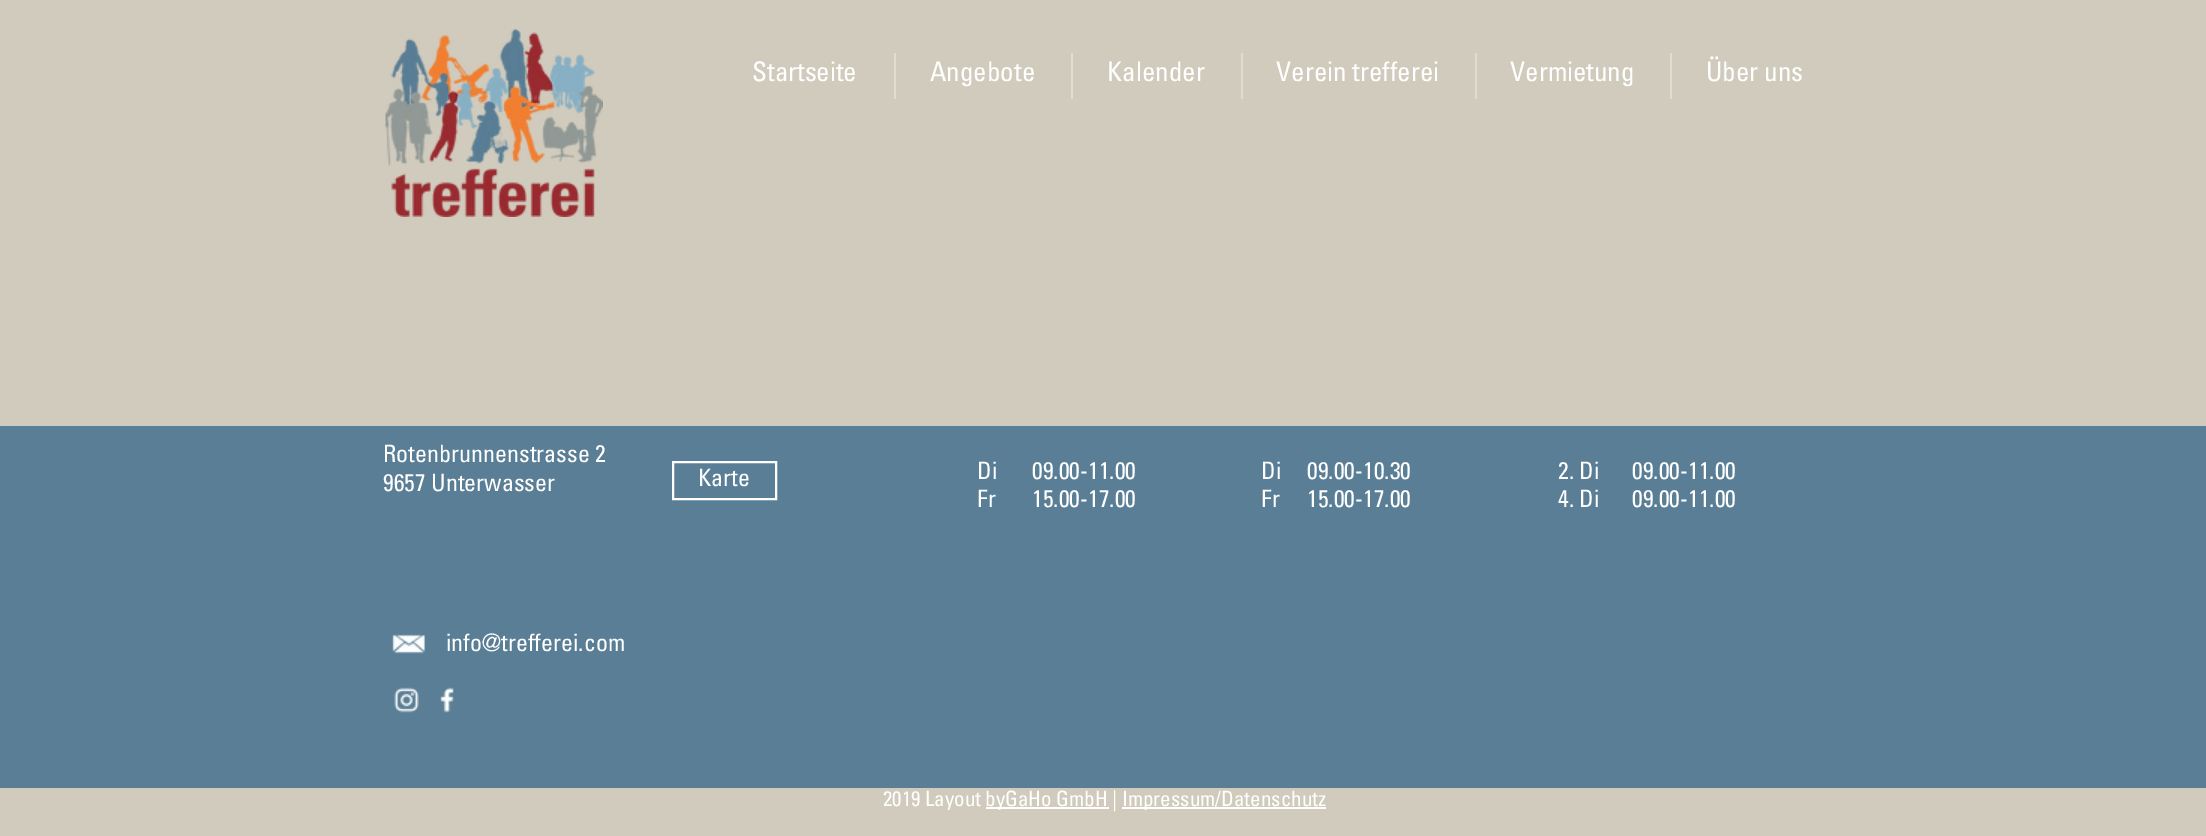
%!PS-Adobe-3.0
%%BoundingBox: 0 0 2206 836
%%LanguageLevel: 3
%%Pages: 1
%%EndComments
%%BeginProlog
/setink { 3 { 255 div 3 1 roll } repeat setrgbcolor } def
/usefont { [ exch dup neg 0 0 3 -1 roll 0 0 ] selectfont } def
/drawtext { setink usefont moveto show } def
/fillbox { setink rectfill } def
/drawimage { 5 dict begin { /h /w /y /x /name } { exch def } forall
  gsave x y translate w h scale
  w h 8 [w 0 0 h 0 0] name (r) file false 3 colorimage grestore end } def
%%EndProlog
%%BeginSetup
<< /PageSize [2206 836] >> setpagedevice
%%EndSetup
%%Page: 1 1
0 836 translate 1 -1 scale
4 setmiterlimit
0 0 2206 836 209 203 189 fillbox
(assets/img1.rgb) 385 29 218 188 drawimage
(Startseite) 752 81 /Univers-Regular 27 255 255 255 drawtext
894 53 2 46 224 220 210 fillbox
(Angebote) 930 81 /Univers-Regular 27 255 255 255 drawtext
1071 53 2 46 224 220 210 fillbox
(Kalender) 1107 81 /Univers-Regular 27 255 255 255 drawtext
1241 53 2 46 224 220 210 fillbox
(Verein trefferei) 1276 81 /Univers-Regular 27 255 255 255 drawtext
1475 53 2 46 224 220 210 fillbox
(Vermietung) 1510 81 /Univers-Regular 27 255 255 255 drawtext
1670 53 2 46 224 220 210 fillbox
(Über uns) 1706 81 /Univers-Regular 27 255 255 255 drawtext
0 426 2206 362 89 126 149 fillbox
(Rotenbrunnenstrasse 2) 383 462 /Univers-Regular 24 255 255 255 drawtext
(9657 Unterwasser) 383 491 /Univers-Regular 24 255 255 255 drawtext
2 setlinewidth
673 462 103 37 rectstroke
(Karte) 698 486 /Univers-Regular 24 255 255 255 drawtext
(Di) 977 479 /Univers-Regular 24 255 255 255 drawtext
(Fr) 977 507 /Univers-Regular 24 255 255 255 drawtext
(09.00-11.00) 1032 479 /Univers-Regular 24 255 255 255 drawtext
(15.00-17.00) 1032 507 /Univers-Regular 24 255 255 255 drawtext
(Di) 1261 479 /Univers-Regular 24 255 255 255 drawtext
(Fr) 1261 507 /Univers-Regular 24 255 255 255 drawtext
(09.00-10.30) 1307 479 /Univers-Regular 24 255 255 255 drawtext
(15.00-17.00) 1307 507 /Univers-Regular 24 255 255 255 drawtext
(2. Di) 1558 479 /Univers-Regular 24 255 255 255 drawtext
(4. Di) 1558 507 /Univers-Regular 24 255 255 255 drawtext
(09.00-11.00) 1632 479 /Univers-Regular 24 255 255 255 drawtext
(09.00-11.00) 1632 507 /Univers-Regular 24 255 255 255 drawtext
(assets/img2.rgb) 392 634 34 20 drawimage
(info@trefferei.com) 446 651 /Univers-Regular 24 255 255 255 drawtext
(assets/img3.rgb) 394 687 25 26 drawimage
(assets/img4.rgb) 440 687 14 26 drawimage
(2019 Layout) 883 806 /Univers-Regular 21 255 255 255 drawtext
986 807 123 2 255 255 255 fillbox
(byGaHo GmbH |) 985 806 /Univers-Regular 21 255 255 255 drawtext
1122 807 204 2 255 255 255 fillbox
(Impressum/Datenschutz) 1122 806 /Univers-Regular 21 255 255 255 drawtext
showpage
%%EOF
